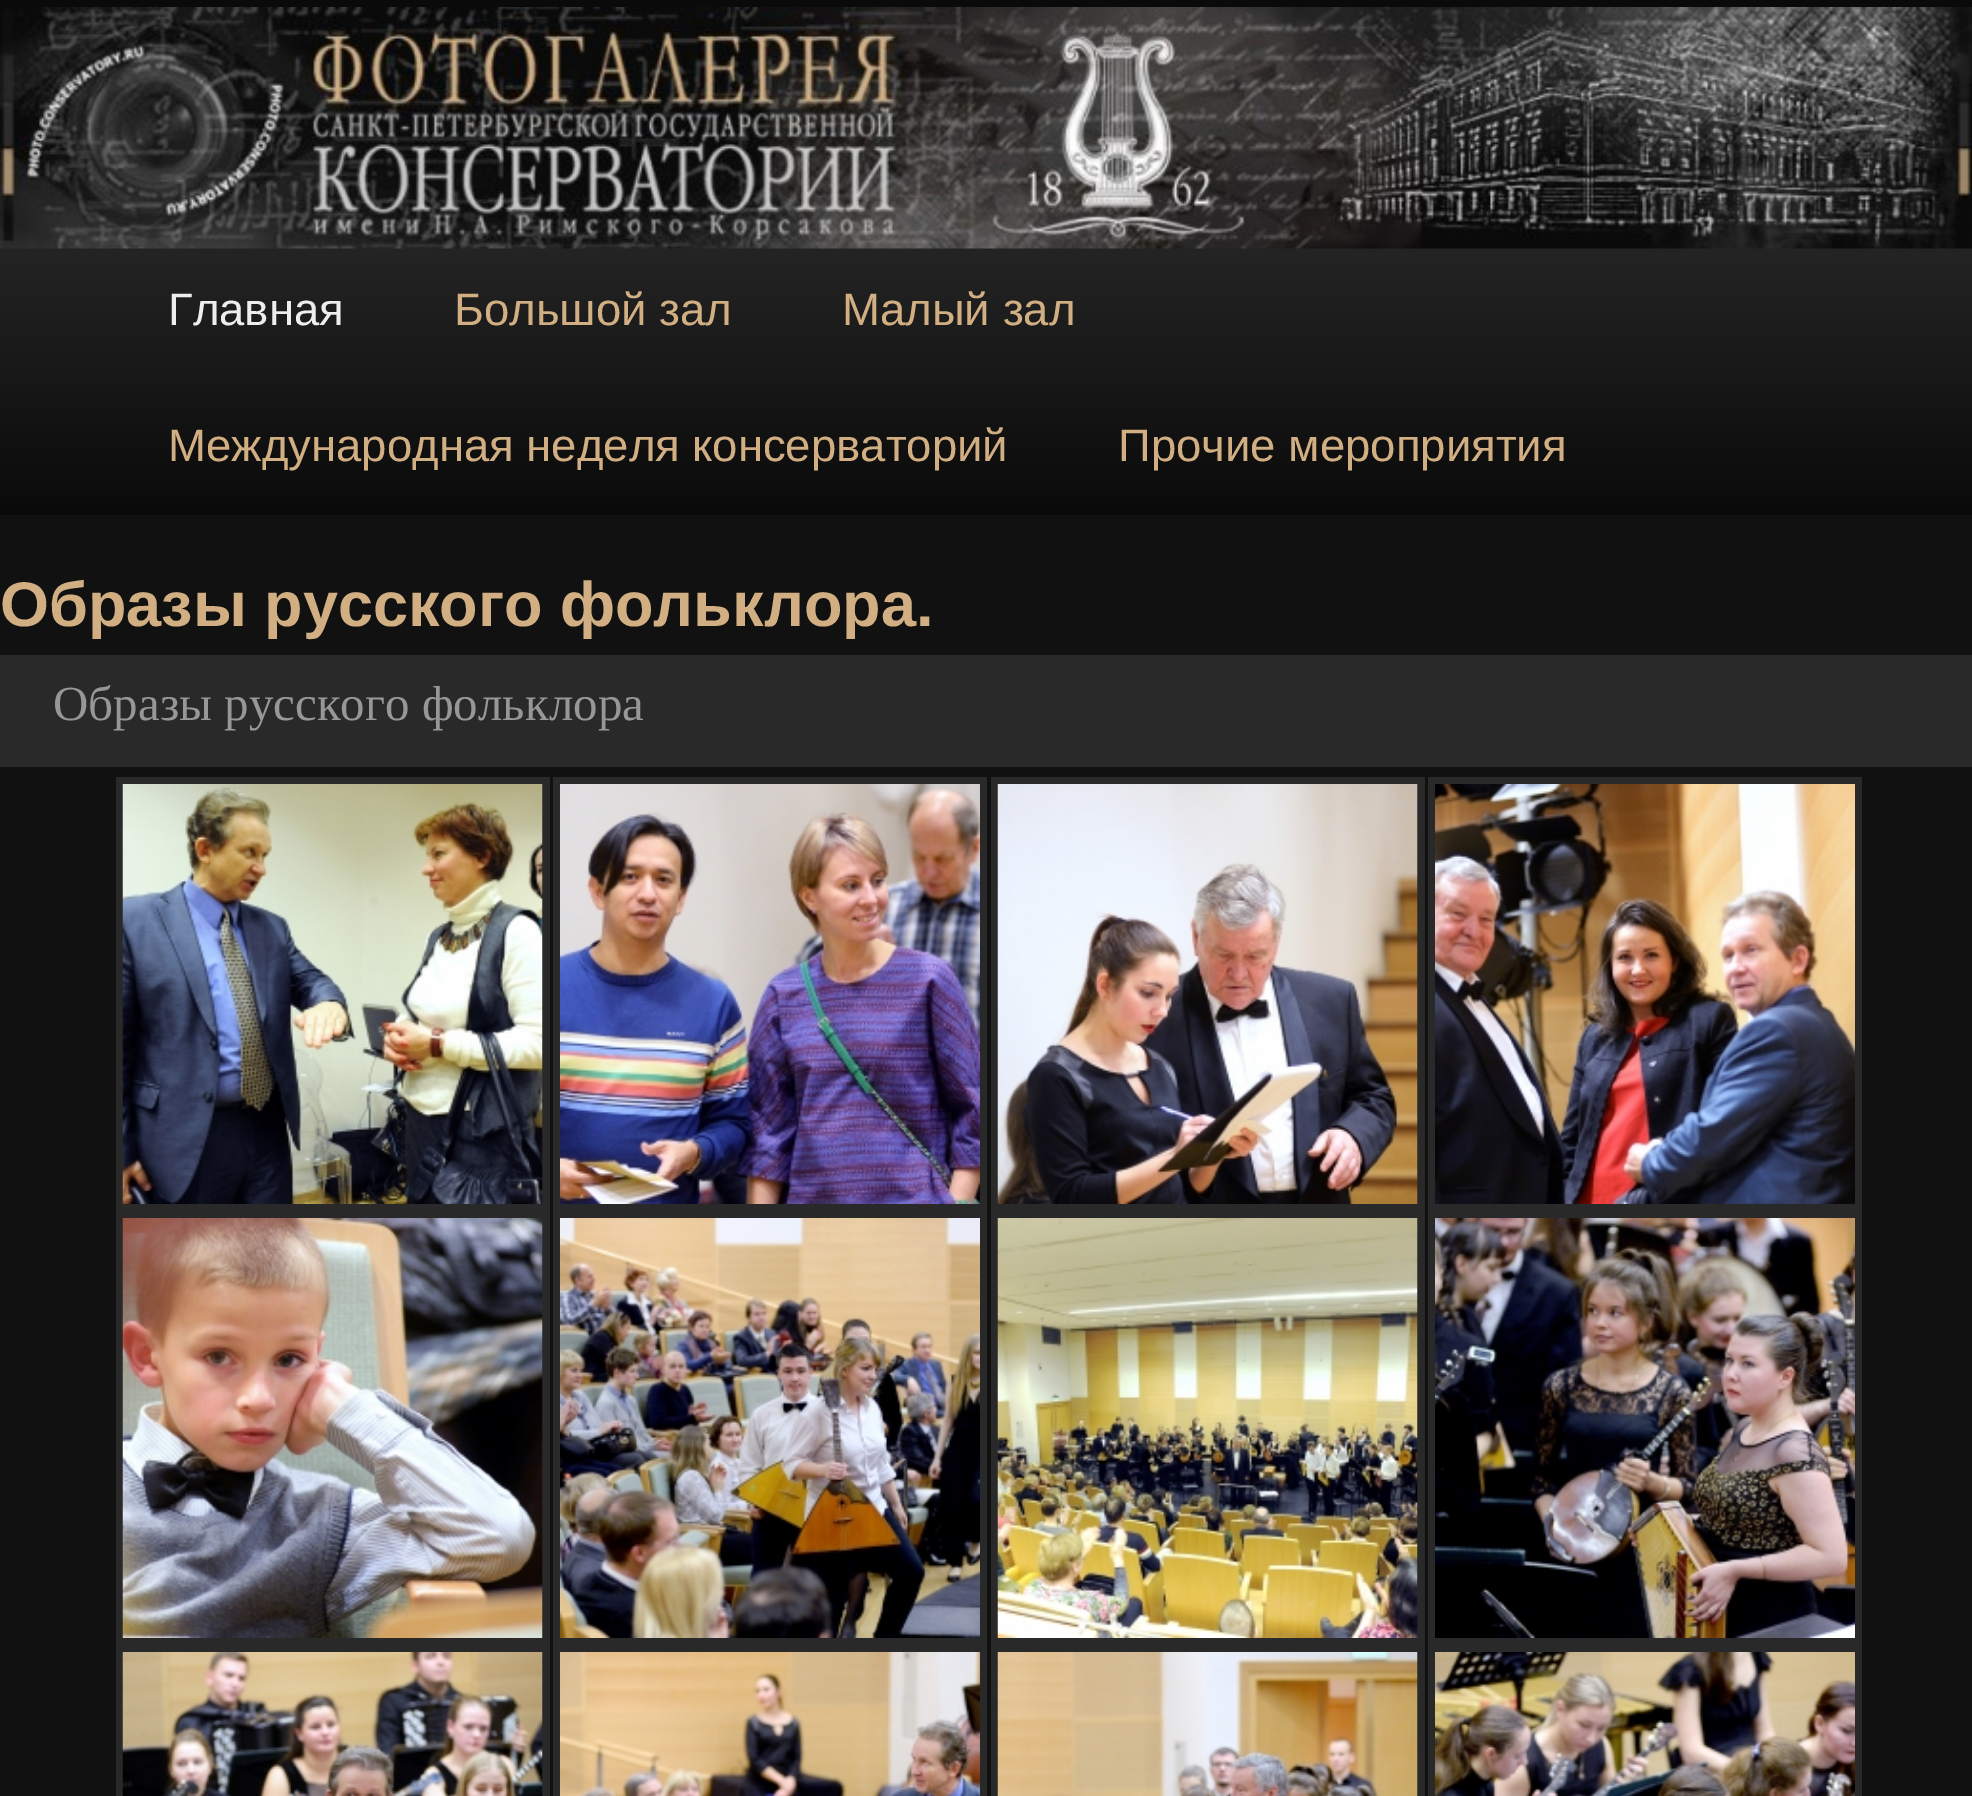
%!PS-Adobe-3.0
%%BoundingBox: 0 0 1972 1796
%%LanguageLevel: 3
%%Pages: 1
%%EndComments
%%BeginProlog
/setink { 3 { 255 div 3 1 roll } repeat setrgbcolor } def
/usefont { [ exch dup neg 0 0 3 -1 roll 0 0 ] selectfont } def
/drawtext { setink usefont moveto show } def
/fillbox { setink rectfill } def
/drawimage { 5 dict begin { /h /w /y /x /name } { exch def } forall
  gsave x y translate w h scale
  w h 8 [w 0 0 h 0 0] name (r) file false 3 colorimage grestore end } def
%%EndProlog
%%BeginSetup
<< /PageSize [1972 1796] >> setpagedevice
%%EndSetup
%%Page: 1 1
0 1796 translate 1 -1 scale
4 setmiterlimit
0 0 1972 1796 17 17 17 fillbox
0 0 1972 7 10 10 10 fillbox
gsave 0 248 moveto 1972 248 lineto 1972 515 lineto 0 515 lineto closepath clip newpath
<< /ShadingType 2 /ColorSpace /DeviceRGB /Coords [987 241 987 515] /Extend [true true] /Function << /FunctionType 2 /Domain [0 1] /C0 [0.145 0.145 0.145] /C1 [0.039 0.039 0.039] /N 1 >> >> shfill grestore
(assets/img1.rgb) 0 7 1972 242 drawimage
(Главная) 168 325 /LiberationSans-Regular 45.5 238 238 238 drawtext
(Большой зал) 454 325 /LiberationSans-Regular 45.5 210 175 131 drawtext
(Малый зал) 842 325 /LiberationSans-Regular 45.5 210 175 131 drawtext
(Международная неделя консерваторий) 168 461 /LiberationSans-Regular 45.5 210 175 131 drawtext
(Прочие мероприятия) 1118 461 /LiberationSans-Regular 45.5 210 175 131 drawtext
(Образы русского фольклора.) 0 626 /LiberationSans-Bold 63 210 175 131 drawtext
0 655 1972 112 41 41 41 fillbox
(Образы русского фольклора) 53 720 /LiberationSerif-Regular 49 151 151 151 drawtext
116 777 434 1019 41 41 41 fillbox
(assets/img2.rgb) 122 784 421 420 drawimage
553 777 434 1019 41 41 41 fillbox
(assets/img3.rgb) 560 784 420 420 drawimage
991 777 434 1019 41 41 41 fillbox
(assets/img4.rgb) 997 784 421 420 drawimage
1428 777 434 1019 41 41 41 fillbox
(assets/img5.rgb) 1435 784 420 420 drawimage
(assets/img6.rgb) 122 1218 421 420 drawimage
(assets/img7.rgb) 560 1218 420 420 drawimage
(assets/img8.rgb) 997 1218 421 420 drawimage
(assets/img9.rgb) 1435 1218 420 420 drawimage
(assets/img10.rgb) 122 1652 421 144 drawimage
(assets/img11.rgb) 560 1652 420 144 drawimage
(assets/img12.rgb) 997 1652 421 144 drawimage
(assets/img13.rgb) 1435 1652 420 144 drawimage
showpage
%%EOF
